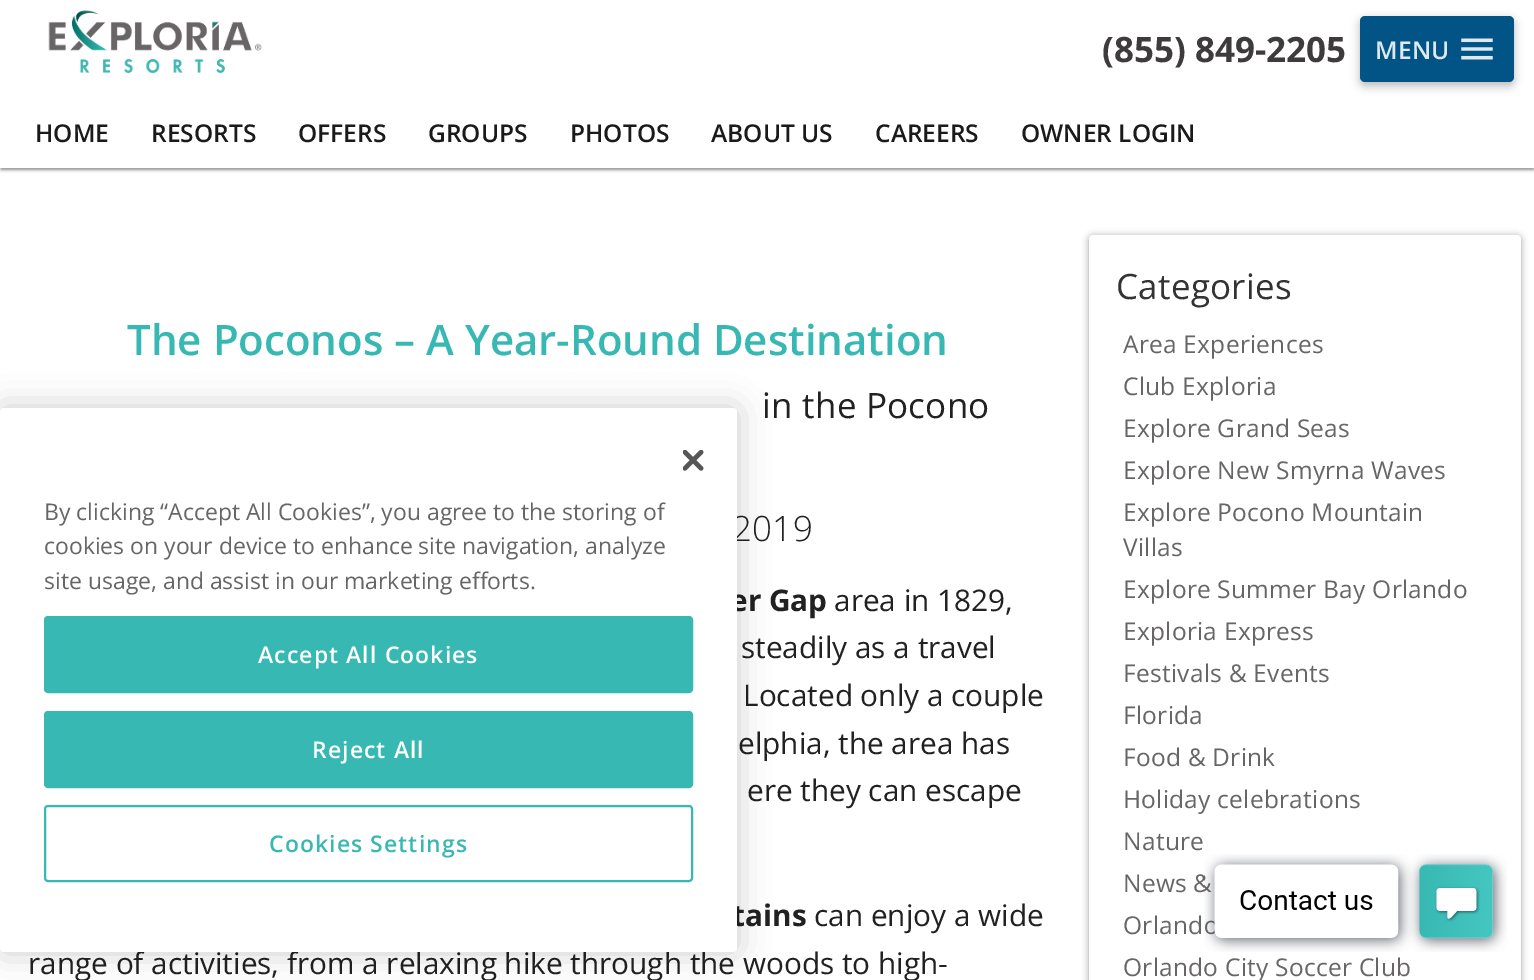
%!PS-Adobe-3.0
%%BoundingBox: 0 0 1534 980
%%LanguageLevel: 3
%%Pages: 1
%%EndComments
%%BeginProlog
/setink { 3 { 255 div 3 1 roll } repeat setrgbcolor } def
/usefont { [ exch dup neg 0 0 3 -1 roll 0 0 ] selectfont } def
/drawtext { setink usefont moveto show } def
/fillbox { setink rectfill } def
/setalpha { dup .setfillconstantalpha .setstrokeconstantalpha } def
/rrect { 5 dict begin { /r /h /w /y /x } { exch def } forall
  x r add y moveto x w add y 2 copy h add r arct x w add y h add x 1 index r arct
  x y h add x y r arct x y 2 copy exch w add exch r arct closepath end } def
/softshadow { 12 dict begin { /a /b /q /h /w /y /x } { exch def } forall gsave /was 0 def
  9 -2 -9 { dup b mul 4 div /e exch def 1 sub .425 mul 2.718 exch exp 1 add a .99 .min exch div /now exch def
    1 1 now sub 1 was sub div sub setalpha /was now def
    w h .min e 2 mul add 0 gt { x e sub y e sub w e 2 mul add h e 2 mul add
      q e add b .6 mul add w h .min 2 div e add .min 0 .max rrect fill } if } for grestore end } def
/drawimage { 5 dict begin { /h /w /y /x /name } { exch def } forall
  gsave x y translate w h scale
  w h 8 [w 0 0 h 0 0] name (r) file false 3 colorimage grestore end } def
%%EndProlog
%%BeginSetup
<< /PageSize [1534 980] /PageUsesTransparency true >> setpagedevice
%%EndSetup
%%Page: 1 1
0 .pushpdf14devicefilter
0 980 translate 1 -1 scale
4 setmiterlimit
0 0 1534 980 255 255 255 fillbox
gsave
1 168 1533 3 rectclip
0 0 0 setink
2 5 1531 165 0 1 0.12 softshadow
grestore
gsave
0 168 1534 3 rectclip
0 0 0 setink
0 2 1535 168 0 1 0.14 softshadow
grestore
gsave
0 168 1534 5 rectclip
0 0 0 setink
0 2 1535 168 0 2.5 0.2 softshadow
grestore
(assets/img1.rgb) 48 10 214 64 drawimage
(\(855\) 849-2205) 1102 62 /OpenSans-Bold 35 61 59 59 drawtext
0 0 0 setink
1360 19 154 67 5 4.5 0.26 softshadow
2 84 134 setink
1360 16 154 66 5 rrect fill
/OpenSans-SemiBold 24.5 usefont
222 233 239 setink
1375 59 moveto 0.25 0 (MENU) ashow
(assets/img2.rgb) 1461 38 32 22 drawimage
(HOME) 35 142 /OpenSans-SemiBold 24.5 26 26 26 drawtext
(RESORTS) 151 142 /OpenSans-SemiBold 24.5 26 26 26 drawtext
(OFFERS) 298 142 /OpenSans-SemiBold 24.5 26 26 26 drawtext
(GROUPS) 428 142 /OpenSans-SemiBold 24.5 26 26 26 drawtext
(PHOTOS) 570 142 /OpenSans-SemiBold 24.5 26 26 26 drawtext
(ABOUT US) 711 142 /OpenSans-SemiBold 24.5 26 26 26 drawtext
(CAREERS) 875 142 /OpenSans-SemiBold 24.5 26 26 26 drawtext
(OWNER LOGIN) 1021 142 /OpenSans-SemiBold 24.5 26 26 26 drawtext
(The Poconos – A Year-Round Destination) 127 355 /OpenSans-SemiBold 42 56 184 179 drawtext
/OpenSans-Regular 35 usefont
33 33 33 setink
762 418 moveto 0.25 0 (in the Pocono) ashow
/OpenSans-Light 35 usefont
732 541 moveto 0.25 0 (2019) ashow
(er Gap) 730 611 /OpenSans-Bold 29.75 33 33 33 drawtext
(area in 1829,) 834 611 /OpenSans-Regular 29.75 33 33 33 drawtext
(steadily as a travel) 741 658 /OpenSans-Regular 29.75 33 33 33 drawtext
(Located only a couple) 743 706 /OpenSans-Regular 29.75 33 33 33 drawtext
(elphia, the area has) 738 754 /OpenSans-Regular 29.75 33 33 33 drawtext
(ere they can escape) 747 801 /OpenSans-Regular 29.75 33 33 33 drawtext
(tains) 732 926 /OpenSans-Bold 29.75 33 33 33 drawtext
(can enjoy a wide) 814 926 /OpenSans-Regular 29.75 33 33 33 drawtext
(range of activities, from a relaxing hike through the woods to high-) 28 974 /OpenSans-Regular 29.75 33 33 33 drawtext
0 0 0 setink
1089 236 432 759 4 3.5 0.37 softshadow
255 255 255 setink
1093 235 moveto 1517 235 lineto 1519 235 1521 237 1521 239 curveto 1521 980 lineto 1089 980 lineto 1089 239 lineto 1089 237 1091 235 1093 235 curveto closepath fill
/OpenSans-Regular 35 usefont
51 51 51 setink
1116 299 moveto 0.25 0 (Categories) ashow
/OpenSans-Regular 24.5 usefont
103 101 101 setink
1123 353 moveto 0.25 0 (Area Experiences) ashow
1123 395 moveto 0.25 0 (Club Exploria) ashow
1123 437 moveto 0.25 0 (Explore Grand Seas) ashow
1123 479 moveto 0.25 0 (Explore New Smyrna Waves) ashow
1123 521 moveto 0.25 0 (Explore Pocono Mountain) ashow
1123 556 moveto 0.25 0 (Villas) ashow
1123 598 moveto 0.25 0 (Explore Summer Bay Orlando) ashow
1123 640 moveto 0.25 0 (Exploria Express) ashow
1123 682 moveto 0.25 0 (Festivals & Events) ashow
1123 724 moveto 0.25 0 (Florida) ashow
1123 766 moveto 0.25 0 (Food & Drink) ashow
1123 808 moveto 0.25 0 (Holiday celebrations) ashow
1123 850 moveto 0.25 0 (Nature) ashow
1123 892 moveto 0.25 0 (News &) ashow
1123 934 moveto 0.25 0 (Orlando) ashow
1123 976 moveto 0.25 0 (Orlando City Soccer Club) ashow
0 0 0 setink
0 408 737 544 4 16 0.2 softshadow
255 255 255 setink
0 408 737 544 4 rrect fill
(assets/img3.rgb) 683 450 21 21 drawimage
(By clicking “Accept All Cookies”, you agree to the storing of) 44 520 /OpenSans-Regular 22.95 103 101 101 drawtext
(cookies on your device to enhance site navigation, analyze) 44 554 /OpenSans-Regular 22.95 103 101 101 drawtext
(site usage, and assist in our marketing efforts.) 44 589 /OpenSans-Regular 22.95 103 101 101 drawtext
56 184 179 setink
45 617 647 75 3 rrect gsave fill grestore
2 setlinewidth
stroke
/OpenSans-SemiBold 22.95 usefont
255 255 255 setink
258 663 moveto 1.1 0 (Accept All Cookies) ashow
56 184 179 setink
45 712 647 75 3 rrect gsave fill grestore
stroke
255 255 255 setink
312 758 moveto 1.1 0 (Reject All) ashow
56 184 179 setink
45 806 647 75 3 rrect stroke
269 852 moveto 1.1 0 (Cookies Settings) ashow
(assets/img4.rgb) 1204 854 303 98 drawimage
.poppdf14devicefilter showpage
%%EOF
